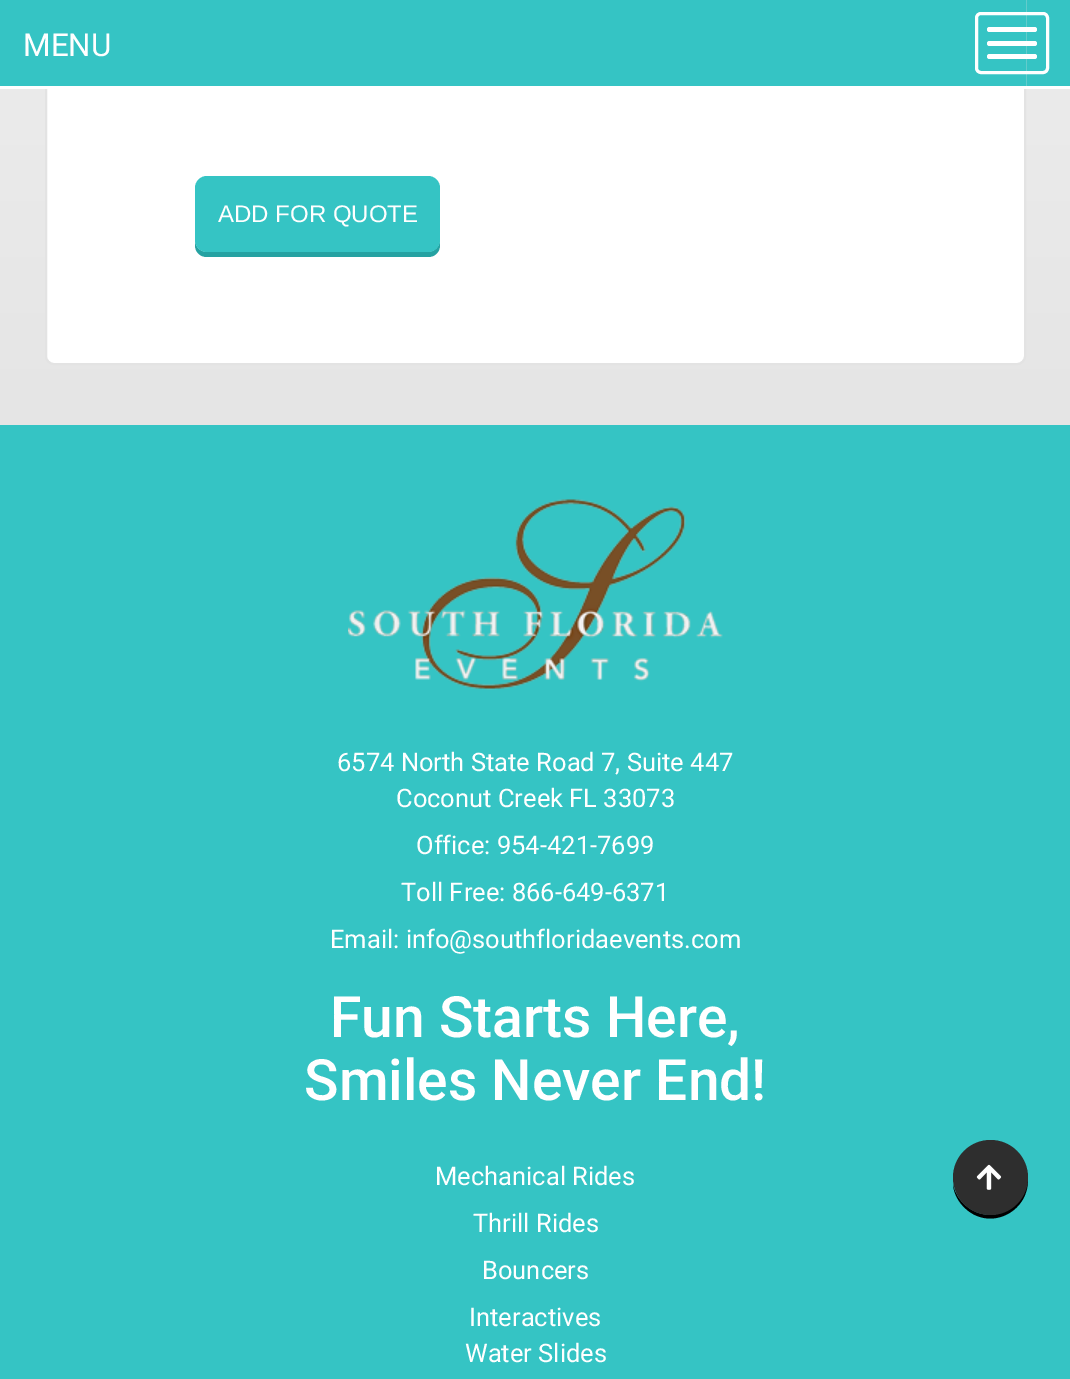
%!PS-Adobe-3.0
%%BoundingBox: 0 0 1070 1379
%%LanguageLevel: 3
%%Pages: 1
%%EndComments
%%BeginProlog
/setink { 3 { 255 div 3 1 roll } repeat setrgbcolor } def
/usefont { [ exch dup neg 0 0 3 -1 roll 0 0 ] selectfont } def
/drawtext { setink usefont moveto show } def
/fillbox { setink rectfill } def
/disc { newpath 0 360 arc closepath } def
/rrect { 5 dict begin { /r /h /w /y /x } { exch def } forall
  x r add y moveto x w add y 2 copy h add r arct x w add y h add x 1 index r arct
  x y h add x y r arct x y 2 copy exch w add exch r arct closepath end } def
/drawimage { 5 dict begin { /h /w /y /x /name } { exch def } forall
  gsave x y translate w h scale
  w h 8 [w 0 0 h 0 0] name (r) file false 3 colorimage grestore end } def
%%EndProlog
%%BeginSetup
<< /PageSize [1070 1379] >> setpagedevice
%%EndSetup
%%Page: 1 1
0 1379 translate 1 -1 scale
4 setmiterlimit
0 0 1070 1379 53 196 196 fillbox
gsave 0 89 moveto 1070 89 lineto 1070 425 lineto 0 425 lineto closepath clip newpath
<< /ShadingType 2 /ColorSpace /DeviceRGB /Coords [536 1286 536 -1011] /Extend [true true] /Function << /FunctionType 2 /Domain [0 1] /C0 [0.835 0.835 0.835] /C1 [1 1 1] /N 1 >> >> shfill grestore
255 255 255 setink
46 -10 979 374 8 rrect gsave fill grestore
227 227 227 setink
2 setlinewidth
stroke
45 0 981 86 53 196 196 fillbox
0 86 1070 3 255 255 255 fillbox
(MENU) 23 56 /Roboto-Regular 31.5 255 255 255 drawtext
3 setlinewidth
976.5 13.5 71 59 4.5 rrect stroke
987 27 50 5 2.5 rrect fill
987 41 50 5 2.5 rrect fill
987 54 50 5 2.5 rrect fill
37 162 162 setink
195 240 moveto 195 245 lineto 195 252 200 257 207 257 curveto 428 257 lineto 435 257 440 252 440 245 curveto 440 192 lineto 440 189 lineto 440 240 lineto 440 247 434 252 428 252 curveto 207 252 lineto 200 252 195 247 195 240 curveto closepath fill
53 196 196 setink
195 176 245 76 12 rrect fill
(ADD FOR QUOTE) 218 222 /LiberationSans-Regular 24 255 255 255 drawtext
(assets/img1.rgb) 348 499 375 191 drawimage
(6574 North State Road 7, Suite 447) 337 771 /Roboto-Regular 25.5 255 255 255 drawtext
(Coconut Creek FL 33073) 396 807 /Roboto-Regular 25.5 255 255 255 drawtext
(Office: 954-421-7699) 416 854 /Roboto-Regular 25.5 255 255 255 drawtext
(Toll Free: 866-649-6371) 401 901 /Roboto-Regular 25.5 255 255 255 drawtext
(Email: info@southfloridaevents.com) 330 948 /Roboto-Regular 25.5 255 255 255 drawtext
(Fun Starts Here,) 330 1037 /Roboto-Medium 57 255 255 255 drawtext
(Smiles Never End!) 304 1100 /Roboto-Medium 57 255 255 255 drawtext
(Mechanical Rides) 435 1185 /Roboto-Regular 25.5 255 255 255 drawtext
(Thrill Rides) 473 1232 /Roboto-Regular 25.5 255 255 255 drawtext
(Bouncers) 482 1279 /Roboto-Regular 25.5 255 255 255 drawtext
(Interactives) 469 1326 /Roboto-Regular 25.5 255 255 255 drawtext
(Water Slides) 465 1362 /Roboto-Regular 25.5 255 255 255 drawtext
0 0 0 setink
953 1185 moveto 954 1194 959 1203 966 1209 curveto 993 1233 1034 1208 1027 1173 curveto 1031 1206 992 1228 966 1206 curveto 960 1201 955 1194 953 1185 curveto closepath fill
46 46 46 setink
990.5 1177.5 37.5 disc fill
(assets/img2.rgb) 976 1164 26 26 drawimage
showpage
%%EOF
